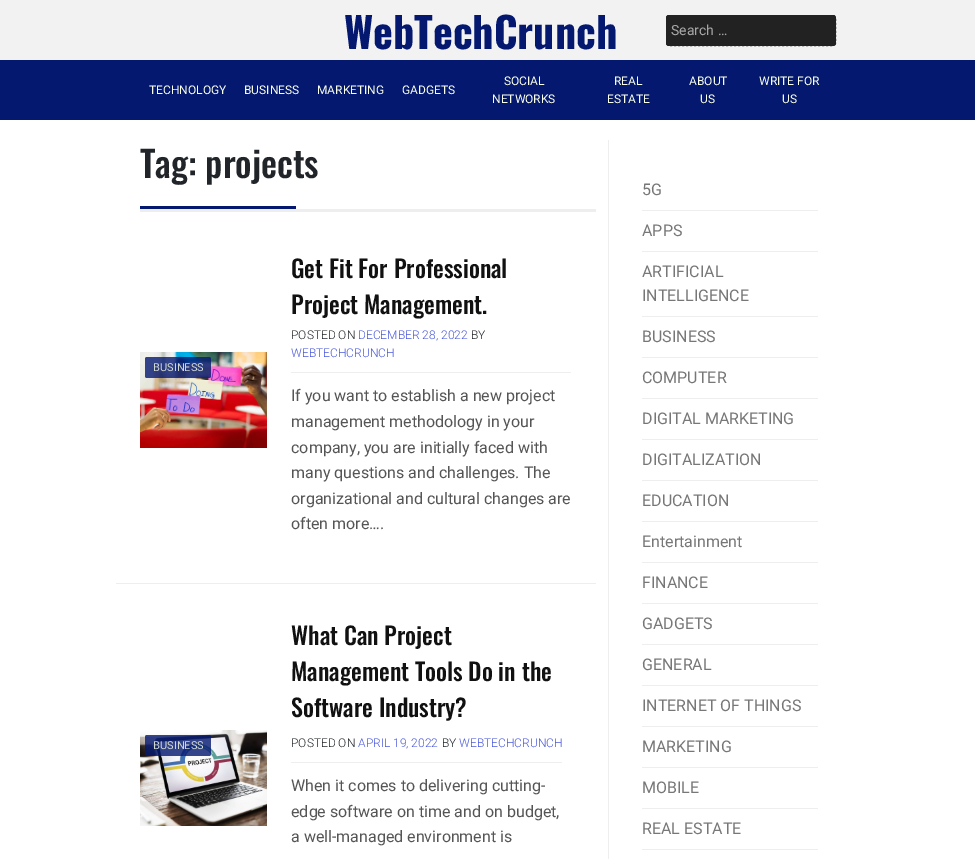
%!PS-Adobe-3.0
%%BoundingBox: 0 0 975 859
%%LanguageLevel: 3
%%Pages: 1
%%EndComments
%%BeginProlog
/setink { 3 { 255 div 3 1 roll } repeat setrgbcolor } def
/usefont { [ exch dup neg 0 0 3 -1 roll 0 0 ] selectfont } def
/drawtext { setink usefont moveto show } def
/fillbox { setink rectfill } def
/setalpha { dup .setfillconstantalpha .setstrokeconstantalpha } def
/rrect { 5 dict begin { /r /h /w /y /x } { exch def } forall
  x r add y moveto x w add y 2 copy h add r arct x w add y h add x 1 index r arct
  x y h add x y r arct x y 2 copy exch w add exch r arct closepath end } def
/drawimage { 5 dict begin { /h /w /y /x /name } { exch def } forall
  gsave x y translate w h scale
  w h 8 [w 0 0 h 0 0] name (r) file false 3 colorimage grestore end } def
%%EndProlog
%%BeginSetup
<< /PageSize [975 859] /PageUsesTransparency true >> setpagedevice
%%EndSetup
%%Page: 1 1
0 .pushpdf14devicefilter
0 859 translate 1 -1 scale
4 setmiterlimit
0 0 975 859 255 255 255 fillbox
0 0 975 60 242 242 242 fillbox
(WebTechCrunch) 344 49 /Oswald-Bold 42 4 24 112 drawtext
34 34 34 setink
666 15 170 31 3 rrect fill
2 setlinewidth
[2 2] 0 setdash
669 16 moveto 833 16 lineto 834 16 835 17 835 18 curveto 835 43 lineto 835 44 834 45 833 45 curveto 669 45 lineto 668 45 667 44 667 43 curveto 667 18 lineto 667 17 668 16 669 16 curveto closepath stroke
(Search …) 671 35 /Roboto-Regular 14 167 167 167 drawtext
0 60 975 60 4 24 112 fillbox
(TECHNOLOGY) 149 94 /Roboto-Regular 12 249 255 231 drawtext
(BUSINESS) 244 94 /Roboto-Regular 12 249 255 231 drawtext
(MARKETING) 317 94 /Roboto-Regular 12 249 255 231 drawtext
(GADGETS) 402 94 /Roboto-Regular 12 249 255 231 drawtext
(SOCIAL) 504 85 /Roboto-Regular 12 249 255 231 drawtext
(NETWORKS) 492 103 /Roboto-Regular 12 249 255 231 drawtext
(REAL) 614 85 /Roboto-Regular 12 249 255 231 drawtext
(ESTATE) 607 103 /Roboto-Regular 12 249 255 231 drawtext
(ABOUT) 689 85 /Roboto-Regular 12 249 255 231 drawtext
(US) 700 103 /Roboto-Regular 12 249 255 231 drawtext
(WRITE FOR) 759 85 /Roboto-Regular 12 249 255 231 drawtext
(US) 782 103 /Roboto-Regular 12 249 255 231 drawtext
140 209 456 3 238 238 238 fillbox
(Tag: projects) 140 178 /Oswald-Medium 36 33 37 41 drawtext
140 206 156 3 4 24 112 fillbox
116 583 480 1 238 238 238 fillbox
(assets/img1.rgb) 140 352 127 96 drawimage
0.8 setalpha
4 24 112 setink
145 357 66 21 2 rrect fill
1 setalpha
(BUSINESS) 153 371 /Roboto-Regular 11 208 216 210 drawtext
(Get Fit For Professional) 291 278 /Oswald-Medium 24 17 17 17 drawtext
(Project Management.) 291 314 /Oswald-Medium 24 17 17 17 drawtext
291 372 280 1 238 238 238 fillbox
(POSTED ON) 291 339 /Roboto-Light 12 33 37 41 drawtext
(DECEMBER 28, 2022) 358 339 /Roboto-Light 12 74 88 217 drawtext
(BY) 471 339 /Roboto-Light 12 33 37 41 drawtext
(WEBTECHCRUNCH) 291 357 /Roboto-Light 12 74 88 217 drawtext
(If you want to establish a new project) 291 401 /Roboto-Regular 16 85 85 85 drawtext
(management methodology in your) 291 427 /Roboto-Regular 16 85 85 85 drawtext
(company, you are initially faced with) 291 453 /Roboto-Regular 16 85 85 85 drawtext
(many questions and challenges. The) 291 478 /Roboto-Regular 16 85 85 85 drawtext
(organizational and cultural changes are) 291 504 /Roboto-Regular 16 85 85 85 drawtext
(often more….) 291 529 /Roboto-Regular 16 85 85 85 drawtext
(assets/img2.rgb) 140 730 127 96 drawimage
0.8 setalpha
4 24 112 setink
145 735 66 21 2 rrect fill
1 setalpha
(BUSINESS) 153 749 /Roboto-Regular 11 208 216 210 drawtext
(What Can Project) 291 645 /Oswald-Medium 24 17 17 17 drawtext
(Management Tools Do in the) 291 681 /Oswald-Medium 24 17 17 17 drawtext
(Software Industry?) 291 717 /Oswald-Medium 24 17 17 17 drawtext
291 762 271 1 238 238 238 fillbox
(POSTED ON) 291 747 /Roboto-Light 12 33 37 41 drawtext
(APRIL 19, 2022) 358 747 /Roboto-Light 12 74 88 217 drawtext
(BY) 442 747 /Roboto-Light 12 33 37 41 drawtext
(WEBTECHCRUNCH) 459 747 /Roboto-Light 12 74 88 217 drawtext
(When it comes to delivering cutting-) 291 791 /Roboto-Regular 16 85 85 85 drawtext
(edge software on time and on budget,) 291 817 /Roboto-Regular 16 85 85 85 drawtext
(a well-managed environment is) 291 842 /Roboto-Regular 16 85 85 85 drawtext
608 140 1 719 238 238 238 fillbox
642 210 176 1 238 238 238 fillbox
(5G) 642 195 /Roboto-Regular 16 119 119 119 drawtext
642 251 176 1 238 238 238 fillbox
(APPS) 642 236 /Roboto-Regular 16 119 119 119 drawtext
642 316 176 1 238 238 238 fillbox
(ARTIFICIAL) 642 277 /Roboto-Regular 16 119 119 119 drawtext
(INTELLIGENCE) 642 301 /Roboto-Regular 16 119 119 119 drawtext
642 357 176 1 238 238 238 fillbox
(BUSINESS) 642 342 /Roboto-Regular 16 119 119 119 drawtext
642 398 176 1 238 238 238 fillbox
(COMPUTER) 642 383 /Roboto-Regular 16 119 119 119 drawtext
642 439 176 1 238 238 238 fillbox
(DIGITAL MARKETING) 642 424 /Roboto-Regular 16 119 119 119 drawtext
642 480 176 1 238 238 238 fillbox
(DIGITALIZATION) 642 465 /Roboto-Regular 16 119 119 119 drawtext
642 521 176 1 238 238 238 fillbox
(EDUCATION) 642 506 /Roboto-Regular 16 119 119 119 drawtext
642 562 176 1 238 238 238 fillbox
(Entertainment) 642 547 /Roboto-Regular 16 119 119 119 drawtext
642 603 176 1 238 238 238 fillbox
(FINANCE) 642 588 /Roboto-Regular 16 119 119 119 drawtext
642 644 176 1 238 238 238 fillbox
(GADGETS) 642 629 /Roboto-Regular 16 119 119 119 drawtext
642 685 176 1 238 238 238 fillbox
(GENERAL) 642 670 /Roboto-Regular 16 119 119 119 drawtext
642 726 176 1 238 238 238 fillbox
(INTERNET OF THINGS) 642 711 /Roboto-Regular 16 119 119 119 drawtext
642 767 176 1 238 238 238 fillbox
(MARKETING) 642 752 /Roboto-Regular 16 119 119 119 drawtext
642 808 176 1 238 238 238 fillbox
(MOBILE) 642 793 /Roboto-Regular 16 119 119 119 drawtext
642 849 176 1 238 238 238 fillbox
(REAL ESTATE) 642 834 /Roboto-Regular 16 119 119 119 drawtext
.poppdf14devicefilter showpage
%%EOF
